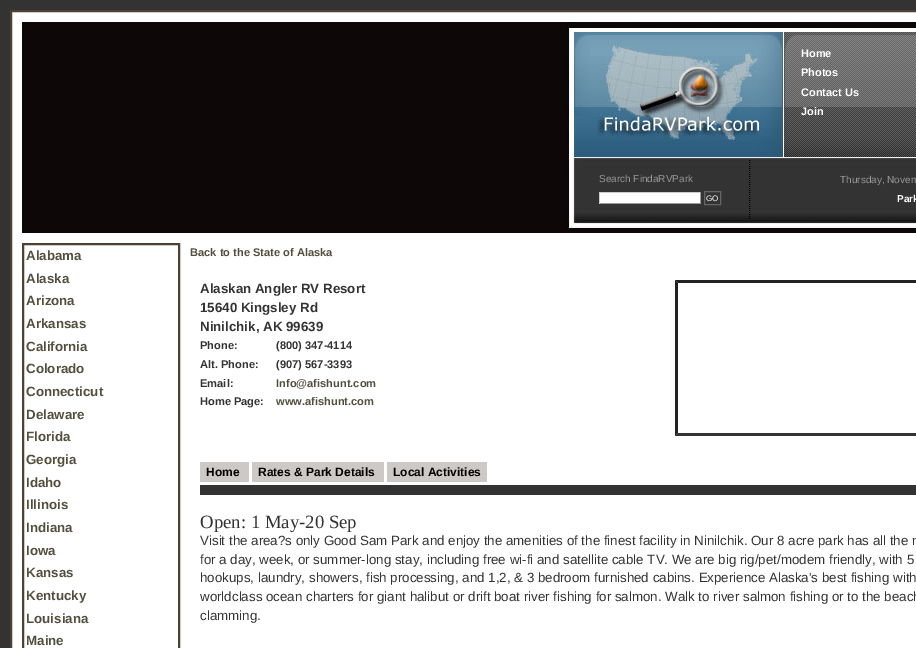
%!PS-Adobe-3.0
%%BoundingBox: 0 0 916 648
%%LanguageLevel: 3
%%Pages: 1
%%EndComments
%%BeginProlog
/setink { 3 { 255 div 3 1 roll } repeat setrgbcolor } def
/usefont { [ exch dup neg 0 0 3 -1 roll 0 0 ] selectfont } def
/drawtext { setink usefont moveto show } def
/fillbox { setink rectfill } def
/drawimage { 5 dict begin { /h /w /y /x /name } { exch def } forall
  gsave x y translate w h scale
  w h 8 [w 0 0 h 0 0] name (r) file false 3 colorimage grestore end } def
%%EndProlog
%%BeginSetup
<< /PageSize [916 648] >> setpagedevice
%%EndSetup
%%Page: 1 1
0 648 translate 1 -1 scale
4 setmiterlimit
0 0 916 648 51 51 51 fillbox
255 255 255 setink
11 11 moveto 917 11 lineto 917 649 lineto 11 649 lineto closepath gsave fill grestore
78 64 51 setink
2 setlinewidth
stroke
(assets/img1.rgb) 22 22 894 211 drawimage
(assets/img2.rgb) 574 32 342 125 drawimage
(Home) 801 57 /LiberationSans-Bold 11 255 255 255 drawtext
(Photos) 801 76 /LiberationSans-Bold 11 255 255 255 drawtext
(Contact Us) 801 96 /LiberationSans-Bold 11 255 255 255 drawtext
(Join) 801 115 /LiberationSans-Bold 11 255 255 255 drawtext
0 0 0 setink
1 setlinewidth
[1 1] 0 setdash
749.5 160 moveto 749.5 220 lineto stroke
(Search FindaRVPark) 599 182 /LiberationSans-Regular 10 153 153 153 drawtext
600 193 100 10 255 255 255 fillbox
599 192 102 1 204 204 204 fillbox
700 192 1 12 153 153 153 fillbox
599 203 102 1 153 153 153 fillbox
599 192 1 12 204 204 204 fillbox
102 102 102 setink
[] 0 setdash
704.5 191.5 16 13 rectstroke
(GO) 706 201 /LiberationSans-Regular 8 255 255 255 drawtext
(Thursday, Novem) 840 183 /LiberationSans-Regular 10 153 153 153 drawtext
(Park) 897 202 /LiberationSans-Bold 10 255 255 255 drawtext
78 64 51 setink
2 setlinewidth
23 244 156 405 rectstroke
(Alabama) 26 260 /LiberationSans-Bold 13.33 83 78 62 drawtext
(Alaska) 26 283 /LiberationSans-Bold 13.33 83 78 62 drawtext
(Arizona) 26 305 /LiberationSans-Bold 13.33 83 78 62 drawtext
(Arkansas) 26 328 /LiberationSans-Bold 13.33 83 78 62 drawtext
(California) 26 351 /LiberationSans-Bold 13.33 83 78 62 drawtext
(Colorado) 26 373 /LiberationSans-Bold 13.33 83 78 62 drawtext
(Connecticut) 26 396 /LiberationSans-Bold 13.33 83 78 62 drawtext
(Delaware) 26 419 /LiberationSans-Bold 13.33 83 78 62 drawtext
(Florida) 26 441 /LiberationSans-Bold 13.33 83 78 62 drawtext
(Georgia) 26 464 /LiberationSans-Bold 13.33 83 78 62 drawtext
(Idaho) 26 487 /LiberationSans-Bold 13.33 83 78 62 drawtext
(Illinois) 26 509 /LiberationSans-Bold 13.33 83 78 62 drawtext
(Indiana) 26 532 /LiberationSans-Bold 13.33 83 78 62 drawtext
(Iowa) 26 555 /LiberationSans-Bold 13.33 83 78 62 drawtext
(Kansas) 26 577 /LiberationSans-Bold 13.33 83 78 62 drawtext
(Kentucky) 26 600 /LiberationSans-Bold 13.33 83 78 62 drawtext
(Louisiana) 26 623 /LiberationSans-Bold 13.33 83 78 62 drawtext
(Maine) 26 645 /LiberationSans-Bold 13.33 83 78 62 drawtext
(Back to the State of Alaska) 190 256 /LiberationSans-Bold 11.1 83 78 62 drawtext
(Alaskan Angler RV Resort) 200 293 /LiberationSans-Bold 13.33 51 51 51 drawtext
(15640 Kingsley Rd) 200 312 /LiberationSans-Bold 13.33 51 51 51 drawtext
(Ninilchik, AK 99639) 200 331 /LiberationSans-Bold 13.33 51 51 51 drawtext
(Phone:) 200 349 /LiberationSans-Bold 11.1 51 51 51 drawtext
(\(800\) 347-4114) 276 349 /LiberationSans-Bold 11.1 51 51 51 drawtext
(Alt. Phone:) 200 368 /LiberationSans-Bold 11.1 51 51 51 drawtext
(\(907\) 567-3393) 276 368 /LiberationSans-Bold 11.1 51 51 51 drawtext
(Email:) 200 387 /LiberationSans-Bold 11.1 51 51 51 drawtext
(Info@afishunt.com) 276 387 /LiberationSans-Bold 11.1 83 78 62 drawtext
(Home Page:) 200 405 /LiberationSans-Bold 11.1 51 51 51 drawtext
(www.afishunt.com) 276 405 /LiberationSans-Bold 11.1 83 78 62 drawtext
34 34 34 setink
675 280 moveto 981 280 lineto 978 283 lineto 678 283 lineto closepath fill
51 51 51 setink
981 436 moveto 675 436 lineto 678 433 lineto 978 433 lineto closepath fill
34 34 34 setink
675 436 moveto 675 280 lineto 678 283 lineto 678 433 lineto closepath fill
200 462 49 20 205 201 198 fillbox
(Home) 206 476 /LiberationSans-Bold 12 0 0 0 drawtext
252 462 132 20 205 201 198 fillbox
(Rates & Park Details) 258 476 /LiberationSans-Bold 12 0 0 0 drawtext
387 462 100 20 205 201 198 fillbox
(Local Activities) 393 476 /LiberationSans-Bold 12 0 0 0 drawtext
200 485 716 10 51 51 51 fillbox
(Open: 1 May-20 Sep) 200 528 /LiberationSerif-Regular 18.75 51 51 51 drawtext
(Visit the area?s only Good Sam Park and enjoy the amenities of the finest facility in Ninilchik. Our 8 acre park has all the n) 200 545 /LiberationSans-Regular 13.33 51 51 51 drawtext
(for a day, week, or summer-long stay, including free wi-fi and satellite cable TV. We are big rig/pet/modem friendly, with 5) 200 564 /LiberationSans-Regular 13.33 51 51 51 drawtext
(hookups, laundry, showers, fish processing, and 1,2, & 3 bedroom furnished cabins. Experience Alaska's best fishing with) 200 582 /LiberationSans-Regular 13.33 51 51 51 drawtext
(worldclass ocean charters for giant halibut or drift boat river fishing for salmon. Walk to river salmon fishing or to the beach) 200 601 /LiberationSans-Regular 13.33 51 51 51 drawtext
(clamming.) 200 620 /LiberationSans-Regular 13.33 51 51 51 drawtext
showpage
%%EOF
